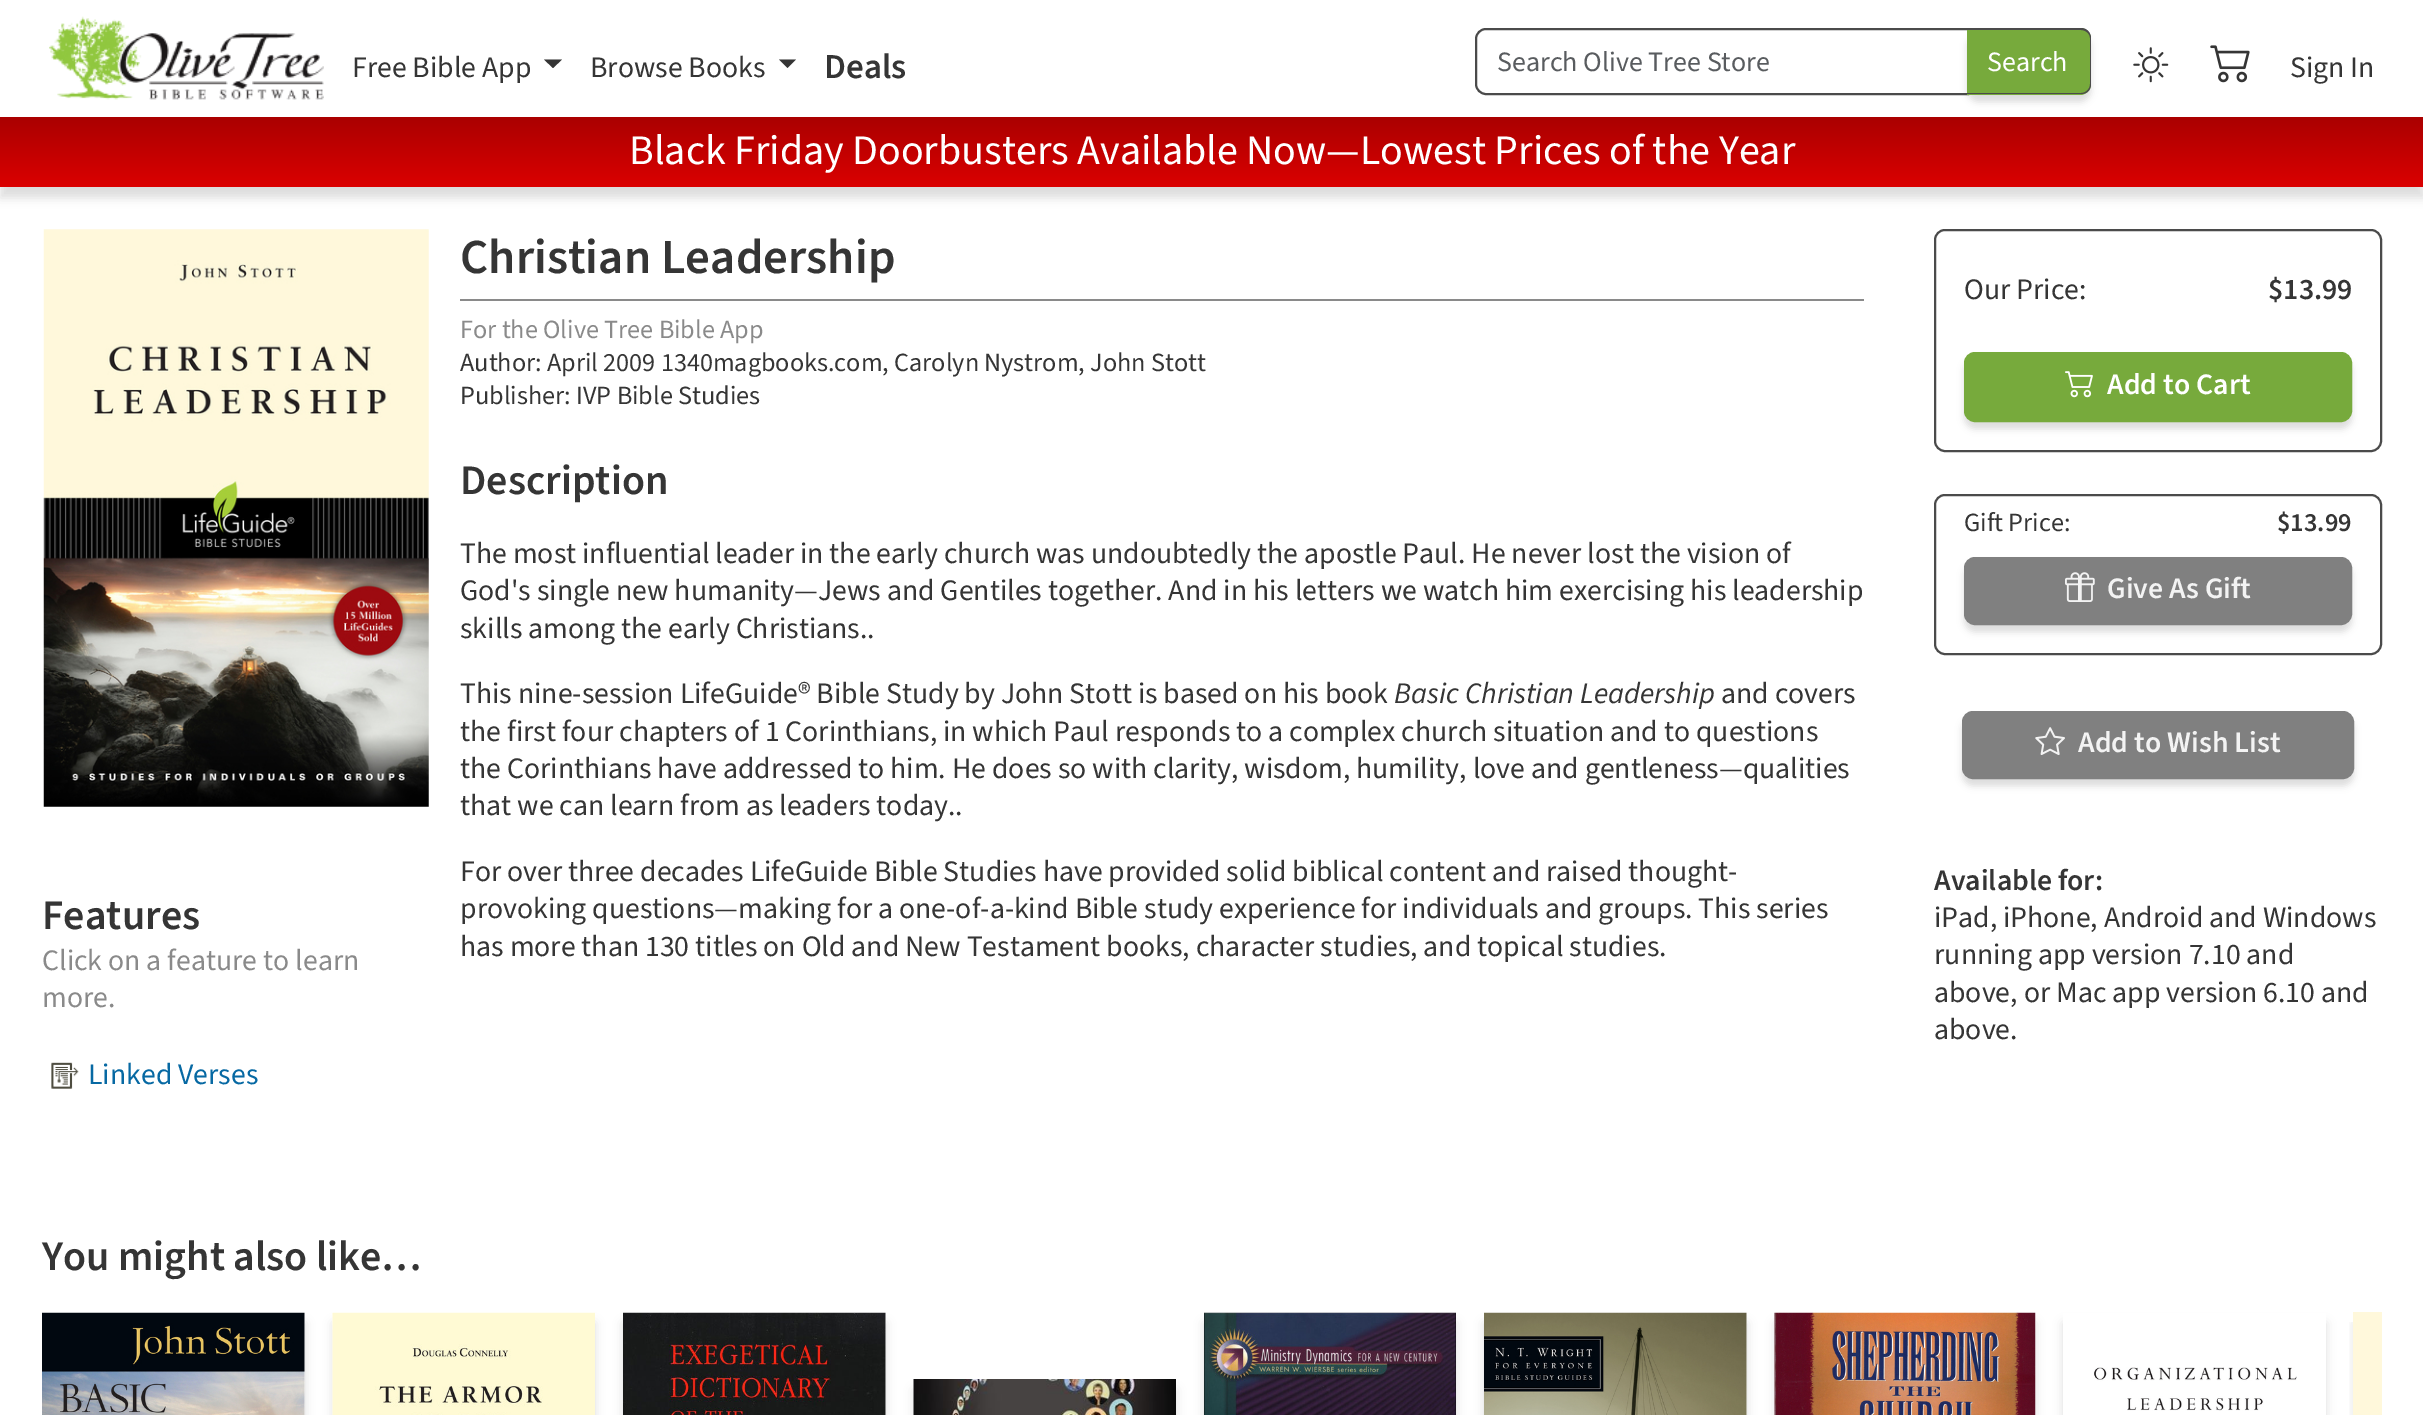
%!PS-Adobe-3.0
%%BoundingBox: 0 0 2423 1415
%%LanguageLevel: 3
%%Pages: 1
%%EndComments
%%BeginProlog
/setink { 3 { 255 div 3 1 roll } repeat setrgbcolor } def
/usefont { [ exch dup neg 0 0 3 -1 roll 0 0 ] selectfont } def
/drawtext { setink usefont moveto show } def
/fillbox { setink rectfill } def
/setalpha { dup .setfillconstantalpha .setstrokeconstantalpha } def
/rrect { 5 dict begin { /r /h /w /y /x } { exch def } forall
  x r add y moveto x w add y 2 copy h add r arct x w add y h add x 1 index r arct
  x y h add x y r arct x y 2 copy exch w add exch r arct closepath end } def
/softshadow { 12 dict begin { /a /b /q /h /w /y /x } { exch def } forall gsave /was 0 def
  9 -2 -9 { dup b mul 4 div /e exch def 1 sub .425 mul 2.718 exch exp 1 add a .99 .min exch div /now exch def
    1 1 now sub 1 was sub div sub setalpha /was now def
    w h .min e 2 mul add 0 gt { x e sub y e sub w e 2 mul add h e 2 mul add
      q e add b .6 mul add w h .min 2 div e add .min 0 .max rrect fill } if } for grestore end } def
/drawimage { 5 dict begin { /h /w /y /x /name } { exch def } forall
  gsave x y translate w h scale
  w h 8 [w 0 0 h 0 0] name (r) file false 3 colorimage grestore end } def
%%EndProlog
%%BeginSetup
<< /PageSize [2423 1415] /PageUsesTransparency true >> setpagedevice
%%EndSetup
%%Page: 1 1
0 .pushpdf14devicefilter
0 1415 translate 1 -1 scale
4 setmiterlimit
0 0 2423 1415 255 255 255 fillbox
(assets/img1.rgb) 49 16 275 84 drawimage
(Free Bible App) 352 77 /SourceSans3-Regular 29.75 53 53 53 drawtext
544 59.5 moveto 562 59.5 lineto 553 68 lineto closepath fill
(Browse Books) 590 77 /SourceSans3-Regular 29.75 53 53 53 drawtext
779 59.5 moveto 796 59.5 lineto 787.5 68 lineto closepath fill
(Deals) 824 78 /SourceSans3-SemiBold 35 53 53 53 drawtext
75 75 75 setink
2 setlinewidth
1486 29 moveto 1968 29 lineto 1968 94 lineto 1486 94 lineto 1480.5 94 1476 89.5 1476 84 curveto 1476 39 lineto 1476 33.5 1480.5 29 1486 29 curveto closepath stroke
(Search Olive Tree Store) 1497 71 /SourceSans3-Regular 28 89 92 95 drawtext
0 0 0 setink
1967 35 124 67 11 3.5 0.13 softshadow
119 170 60 setink
1967 28 moveto 2080 28 lineto 2086 28 2091 33 2091 39 curveto 2091 84 lineto 2091 90 2086 95 2080 95 curveto 1967 95 lineto closepath fill
75 75 75 setink
1967 28 moveto 2081 28 lineto 2087 28 2091 33 2091 38 curveto 2091 84 lineto 2091 90 2087 94 2081 94 curveto 1967 94 lineto closepath 1967 30 moveto 2081 30 lineto 2086 30 2090 34 2090 38 curveto 2090 84 lineto 2090 89 2086 93 2081 93 curveto 1967 93 lineto closepath eofill
(Search) 1987 71 /SourceSans3-Regular 28 255 255 255 drawtext
(assets/img2.rgb) 2133 47 36 36 drawimage
(assets/img3.rgb) 2210 45 40 38 drawimage
(Sign In) 2290 77 /SourceSans3-Regular 29.75 53 53 53 drawtext
0 0 0 setink
0 128 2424 70 0 5 0.13 softshadow
gsave 0 117 moveto 2423 117 lineto 2423 187 lineto 0 187 lineto closepath clip newpath
<< /ShadingType 2 /ColorSpace /DeviceRGB /Coords [1212 117 1212 187] /Extend [true true] /Function << /FunctionType 2 /Domain [0 1] /C0 [0.667 0 0] /C1 [0.859 0 0] /N 1 >> >> shfill grestore
(Black Friday Doorbusters Available Now—Lowest Prices of the Year) 629 164 /SourceSans3-Regular 42 255 255 255 drawtext
(assets/img4.rgb) 43 229 386 578 drawimage
(Features) 42 929 /SourceSans3-SemiBold 42 53 53 53 drawtext
(Click on a feature to learn) 42 970 /SourceSans3-Regular 29.75 138 138 138 drawtext
(more.) 42 1007 /SourceSans3-Regular 29.75 138 138 138 drawtext
(assets/img5.rgb) 51 1062 28 27 drawimage
(Linked Verses) 88 1084 /SourceSans3-Regular 29.75 7 105 163 drawtext
(Christian Leadership) 460 273 /SourceSans3-SemiBold 49 53 53 53 drawtext
460 299 1404 2 138 138 138 fillbox
(For the Olive Tree Bible App) 460 338 /SourceSans3-Regular 26.25 138 138 138 drawtext
(Author: April 2009 1340magbooks.com, Carolyn Nystrom, John Stott) 460 371 /SourceSans3-Regular 26.25 53 53 53 drawtext
(Publisher: IVP Bible Studies) 460 404 /SourceSans3-Regular 26.25 53 53 53 drawtext
(Description) 460 494 /SourceSans3-SemiBold 42 53 53 53 drawtext
(The most influential leader in the early church was undoubtedly the apostle Paul. He never lost the vision of) 460 563 /SourceSans3-Regular 29.75 53 53 53 drawtext
(God's single new humanity—Jews and Gentiles together. And in his letters we watch him exercising his leadership) 460 600 /SourceSans3-Regular 29.75 53 53 53 drawtext
(skills among the early Christians..) 460 638 /SourceSans3-Regular 29.75 53 53 53 drawtext
(This nine-session LifeGuide® Bible Study by John Stott is based on his book) 460 703 /SourceSans3-Regular 29.75 53 53 53 drawtext
(Basic Christian Leadership) 1394 703 /SourceSans3-Italic 29.75 53 53 53 drawtext
(and covers) 1721 703 /SourceSans3-Regular 29.75 53 53 53 drawtext
(the first four chapters of 1 Corinthians, in which Paul responds to a complex church situation and to questions) 460 741 /SourceSans3-Regular 29.75 53 53 53 drawtext
(the Corinthians have addressed to him. He does so with clarity, wisdom, humility, love and gentleness—qualities) 460 778 /SourceSans3-Regular 29.75 53 53 53 drawtext
(that we can learn from as leaders today..) 460 815 /SourceSans3-Regular 29.75 53 53 53 drawtext
(For over three decades LifeGuide Bible Studies have provided solid biblical content and raised thought-) 460 881 /SourceSans3-Regular 29.75 53 53 53 drawtext
(provoking questions—making for a one-of-a-kind Bible study experience for individuals and groups. This series) 460 918 /SourceSans3-Regular 29.75 53 53 53 drawtext
(has more than 130 titles on Old and New Testament books, character studies, and topical studies.) 460 956 /SourceSans3-Regular 29.75 53 53 53 drawtext
75 75 75 setink
1935 230 446 221 10 rrect stroke
(Our Price:) 1964 299 /SourceSans3-Regular 29.75 53 53 53 drawtext
($13.99) 2268 299 /SourceSans3-SemiBold 29.75 53 53 53 drawtext
0 0 0 setink
1964 359 388 70 11 3.5 0.13 softshadow
119 170 60 setink
1965 353 386 68 10 rrect gsave fill grestore
stroke
(assets/img6.rgb) 2065 371 28 27 drawimage
(Add to Cart) 2107 394 /SourceSans3-SemiBold 29.75 255 255 255 drawtext
75 75 75 setink
1935 495 446 159 10 rrect stroke
(Gift Price:) 1964 531 /SourceSans3-Regular 26.25 53 53 53 drawtext
($13.99) 2277 531 /SourceSans3-SemiBold 26.25 53 53 53 drawtext
0 0 0 setink
1964 564 388 68 11 3.5 0.13 softshadow
128 128 128 setink
1965 558 386 66 10 rrect gsave fill grestore
stroke
(assets/img7.rgb) 2065 572 30 30 drawimage
(Give As Gift) 2107 598 /SourceSans3-SemiBold 29.75 243 243 243 drawtext
0 0 0 setink
1962 718 392 68 11 3.5 0.13 softshadow
128 128 128 setink
1963 712 390 66 10 rrect gsave fill grestore
stroke
(assets/img8.rgb) 2035 727 30 28 drawimage
(Add to Wish List) 2078 752 /SourceSans3-SemiBold 29.75 243 243 243 drawtext
(Available for:) 1934 890 /SourceSans3-SemiBold 29.75 53 53 53 drawtext
(iPad, iPhone, Android and Windows) 1934 927 /SourceSans3-Regular 29.75 53 53 53 drawtext
(running app version 7.10 and) 1934 964 /SourceSans3-Regular 29.75 53 53 53 drawtext
(above, or Mac app version 6.10 and) 1934 1002 /SourceSans3-Regular 29.75 53 53 53 drawtext
(above.) 1934 1039 /SourceSans3-Regular 29.75 53 53 53 drawtext
(You might also like…) 42 1270 /SourceSans3-SemiBold 42 53 53 53 drawtext
gsave
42 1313 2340 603 rectclip
0 0 0 setink
42 1323 263 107 0 5 0.13 softshadow
grestore
(assets/img9.rgb) 42 1312 263 103 drawimage
0 0 0 setink
333 1323 262 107 0 5 0.13 softshadow
(assets/img10.rgb) 332 1312 263 103 drawimage
623 1323 263 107 0 5 0.13 softshadow
(assets/img11.rgb) 623 1312 263 103 drawimage
914 1390 262 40 0 5 0.13 softshadow
(assets/img12.rgb) 913 1379 263 36 drawimage
1204 1323 252 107 0 5 0.13 softshadow
(assets/img13.rgb) 1204 1312 252 103 drawimage
1484 1323 263 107 0 5 0.13 softshadow
(assets/img14.rgb) 1484 1312 263 103 drawimage
1775 1323 260 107 0 5 0.13 softshadow
(assets/img15.rgb) 1774 1312 262 103 drawimage
gsave
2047 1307 moveto 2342 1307 lineto 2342 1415 lineto 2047 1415 lineto closepath 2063 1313 moveto 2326 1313 lineto 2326 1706 lineto 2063 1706 lineto closepath eoclip newpath
2063 1323 263 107 0 5 0.13 softshadow
grestore
(assets/img16.rgb) 2094 1367 203 44 drawimage
gsave
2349 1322 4 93 rectclip
2354 1323 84 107 0 5 0.13 softshadow
grestore
2353 1312 29 103 255 248 219 fillbox
.poppdf14devicefilter showpage
%%EOF
